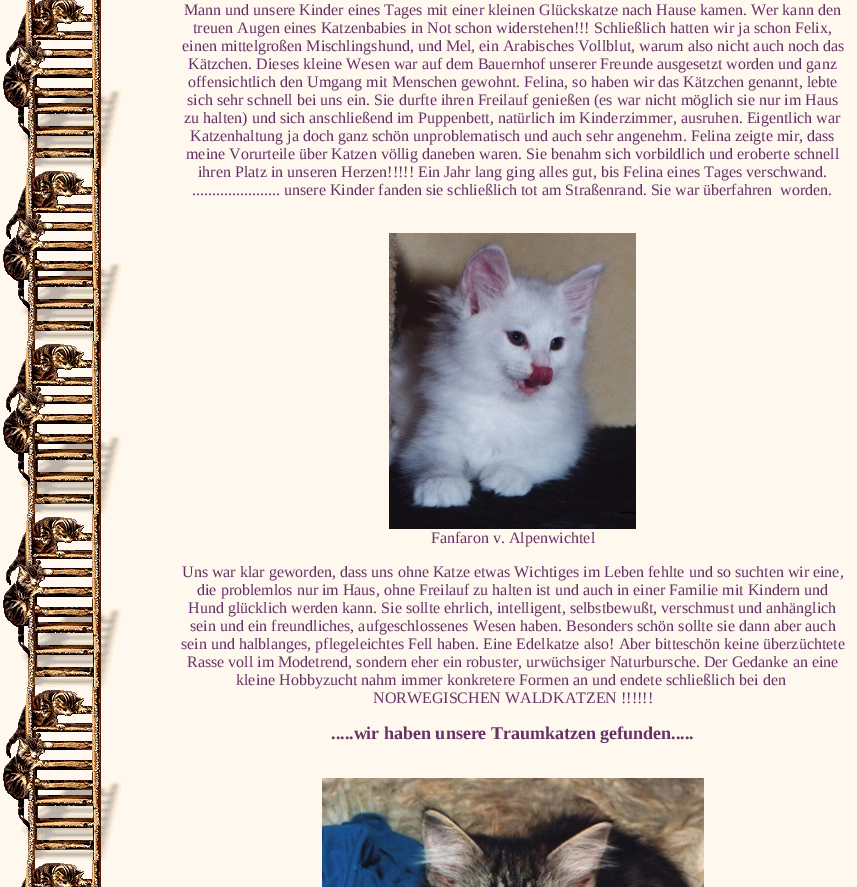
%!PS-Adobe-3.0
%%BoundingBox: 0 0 857 887
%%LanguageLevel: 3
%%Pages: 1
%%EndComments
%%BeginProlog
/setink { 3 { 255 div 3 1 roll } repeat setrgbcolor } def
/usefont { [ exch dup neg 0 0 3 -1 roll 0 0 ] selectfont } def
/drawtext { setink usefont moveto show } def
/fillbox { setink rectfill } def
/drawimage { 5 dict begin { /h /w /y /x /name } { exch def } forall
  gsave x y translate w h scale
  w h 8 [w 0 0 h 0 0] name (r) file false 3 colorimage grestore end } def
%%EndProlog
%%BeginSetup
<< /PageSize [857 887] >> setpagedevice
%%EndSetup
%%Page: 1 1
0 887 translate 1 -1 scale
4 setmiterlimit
0 0 857 887 255 255 255 fillbox
(assets/img1.rgb) 0 0 857 887 drawimage
(Mann und unsere Kinder eines Tages mit einer kleinen Glückskatze nach Hause kamen. Wer kann den) 184 15 /LiberationSerif-Regular 16 102 51 102 drawtext
(treuen Augen eines Katzenbabies in Not schon widerstehen!!! Schließlich hatten wir ja schon Felix,) 193 33 /LiberationSerif-Regular 16 102 51 102 drawtext
(einen mittelgroßen Mischlingshund, und Mel, ein Arabisches Vollblut, warum also nicht auch noch das) 182 51 /LiberationSerif-Regular 16 102 51 102 drawtext
(Kätzchen. Dieses kleine Wesen war auf dem Bauernhof unserer Freunde ausgesetzt worden und ganz) 188 69 /LiberationSerif-Regular 16 102 51 102 drawtext
(offensichtlich den Umgang mit Menschen gewohnt. Felina, so haben wir das Kätzchen genannt, lebte) 188 87 /LiberationSerif-Regular 16 102 51 102 drawtext
(sich sehr schnell bei uns ein. Sie durfte ihren Freilauf genießen \(es war nicht möglich sie nur im Haus) 187 105 /LiberationSerif-Regular 16 102 51 102 drawtext
(zu halten\) und sich anschließend im Puppenbett, natürlich im Kinderzimmer, ausruhen. Eigentlich war) 184 123 /LiberationSerif-Regular 16 102 51 102 drawtext
(Katzenhaltung ja doch ganz schön unproblematisch und auch sehr angenehm. Felina zeigte mir, dass) 190 141 /LiberationSerif-Regular 16 102 51 102 drawtext
(meine Vorurteile über Katzen völlig daneben waren. Sie benahm sich vorbildlich und eroberte schnell) 186 159 /LiberationSerif-Regular 16 102 51 102 drawtext
(ihren Platz in unseren Herzen!!!!! Ein Jahr lang ging alles gut, bis Felina eines Tages verschwand.) 198 177 /LiberationSerif-Regular 16 102 51 102 drawtext
(...................... unsere Kinder fanden sie schließlich tot am Straßenrand. Sie war überfahren  worden.) 192 195 /LiberationSerif-Regular 16 102 51 102 drawtext
(assets/img2.rgb) 389 233 247 296 drawimage
(Fanfaron v. Alpenwichtel) 431 543 /LiberationSerif-Regular 16 102 51 102 drawtext
(Uns war klar geworden, dass uns ohne Katze etwas Wichtiges im Leben fehlte und so suchten wir eine,) 182 577 /LiberationSerif-Regular 16 102 51 102 drawtext
(die problemlos nur im Haus, ohne Freilauf zu halten ist und auch in einer Familie mit Kindern und) 197 595 /LiberationSerif-Regular 16 102 51 102 drawtext
(Hund glücklich werden kann. Sie sollte ehrlich, intelligent, selbstbewußt, verschmust und anhänglich) 188 613 /LiberationSerif-Regular 16 102 51 102 drawtext
(sein und ein freundliches, aufgeschlossenes Wesen haben. Besonders schön sollte sie dann aber auch) 190 631 /LiberationSerif-Regular 16 102 51 102 drawtext
(sein und halblanges, pflegeleichtes Fell haben. Eine Edelkatze also! Aber bitteschön keine überzüchtete) 181 649 /LiberationSerif-Regular 16 102 51 102 drawtext
(Rasse voll im Modetrend, sondern eher ein robuster, urwüchsiger Naturbursche. Der Gedanke an eine) 187 667 /LiberationSerif-Regular 16 102 51 102 drawtext
(kleine Hobbyzucht nahm immer konkretere Formen an und endete schließlich bei den) 236 685 /LiberationSerif-Regular 16 102 51 102 drawtext
(NORWEGISCHEN WALDKATZEN !!!!!!) 373 703 /LiberationSerif-Regular 16 102 51 102 drawtext
(.....wir haben unsere Traumkatzen gefunden.....) 331 739 /LiberationSerif-Bold 18 102 51 102 drawtext
(assets/img3.rgb) 322 778 382 109 drawimage
showpage
%%EOF
